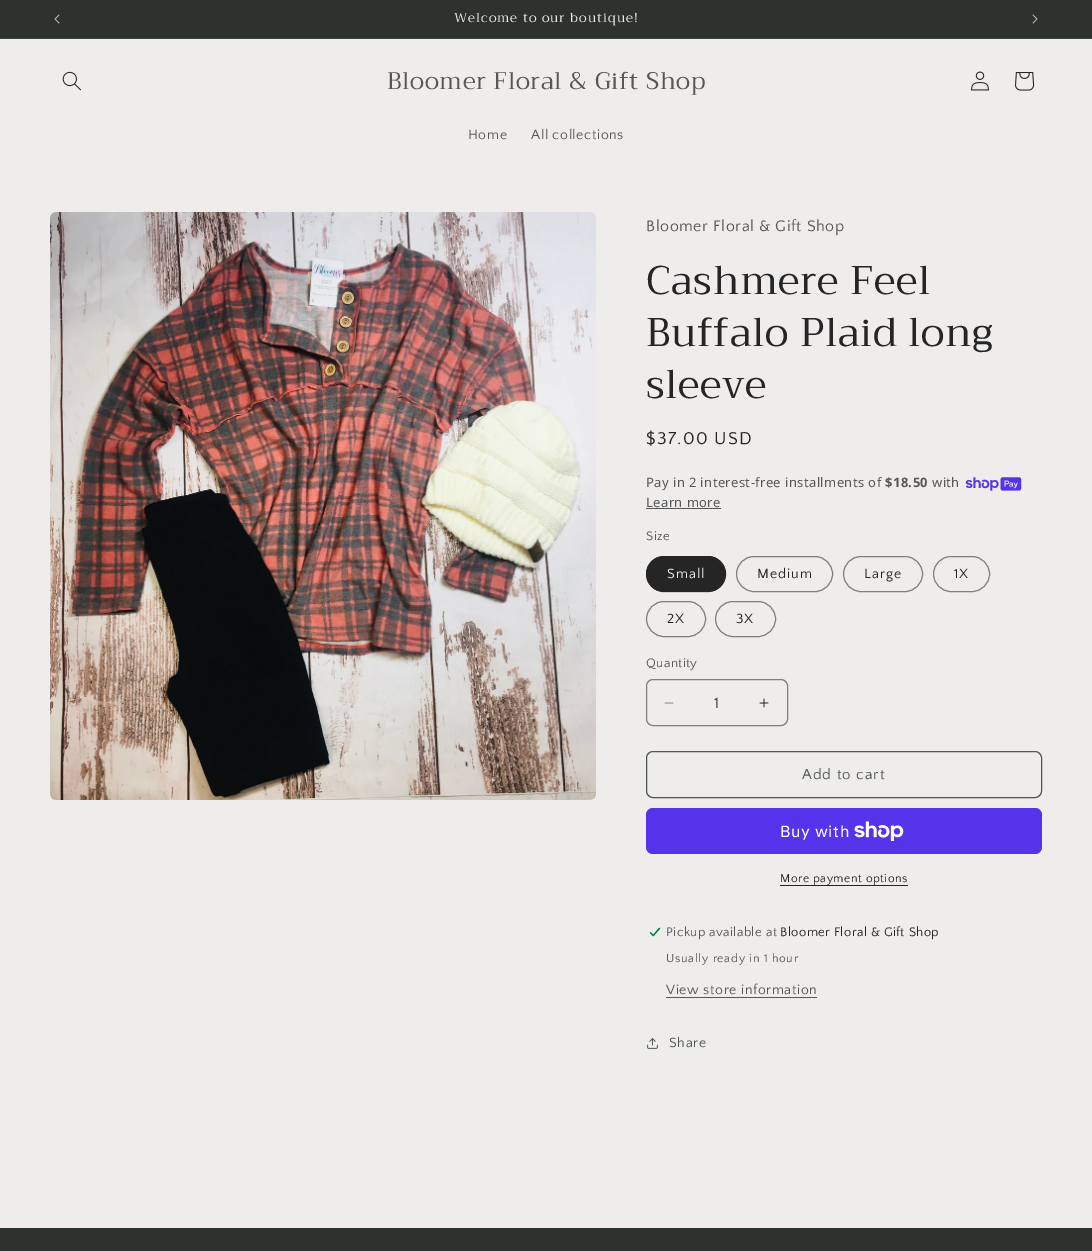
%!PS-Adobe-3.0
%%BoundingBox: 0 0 1092 1251
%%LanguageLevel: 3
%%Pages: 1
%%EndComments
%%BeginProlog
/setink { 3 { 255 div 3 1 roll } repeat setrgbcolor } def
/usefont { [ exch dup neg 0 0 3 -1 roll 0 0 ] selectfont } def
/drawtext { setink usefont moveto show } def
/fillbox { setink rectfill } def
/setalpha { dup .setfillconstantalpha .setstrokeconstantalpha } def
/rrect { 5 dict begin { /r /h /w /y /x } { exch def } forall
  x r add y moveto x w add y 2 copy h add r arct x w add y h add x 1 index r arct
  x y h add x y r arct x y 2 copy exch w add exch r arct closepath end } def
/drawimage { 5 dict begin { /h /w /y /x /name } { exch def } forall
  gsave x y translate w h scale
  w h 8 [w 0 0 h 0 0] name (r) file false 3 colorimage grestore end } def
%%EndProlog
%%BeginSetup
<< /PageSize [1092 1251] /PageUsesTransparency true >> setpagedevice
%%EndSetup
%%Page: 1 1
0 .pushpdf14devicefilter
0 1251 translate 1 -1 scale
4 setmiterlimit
0 0 1092 1251 239 236 236 fillbox
0 0 1092 38 44 51 47 fillbox
0 38 1092 1 60 66 62 fillbox
(assets/img1.rgb) 54 14 6 10 drawimage
/Trirong-Regular 13 usefont
239 236 236 setink
454 22 moveto 1 0 (Welcome to our boutique!) ashow
(assets/img2.rgb) 1032 14 6 10 drawimage
(assets/img3.rgb) 62 71 19 20 drawimage
/Trirong-Regular 24 usefont
88 87 87 setink
387 89 moveto 0.6 0 (Bloomer Floral & Gift Shop) ashow
(assets/img4.rgb) 971 71 18 20 drawimage
(assets/img5.rgb) 1015 72 20 19 drawimage
/QuattrocentoSans-Regular 14 usefont
468 139 moveto 0.6 0 (Home) ashow
531 139 moveto 0.6 0 (All collections) ashow
(assets/img6.rgb) 50 212 546 588 drawimage
/QuattrocentoSans-Regular 16 usefont
646 231 moveto 0.6 0 (Bloomer Floral & Gift Shop) ashow
/Trirong-Regular 40 usefont
37 37 37 setink
646 294 moveto 0.6 0 (Cashmere Feel) ashow
646 346 moveto 0.6 0 (Buffalo Plaid long) ashow
646 398 moveto 0.6 0 (sleeve) ashow
/QuattrocentoSans-Regular 18 usefont
646 444 moveto 1.25 0 ($37.00 USD) ashow
/NotoSans-Regular 13 usefont
88 87 87 setink
646 487 moveto 0.4 0 (Pay in 2 interest-free installments of) ashow
/NotoSans-Bold 13 usefont
885 487 moveto 0.4 0 ($18.50) ashow
/NotoSans-Regular 13 usefont
932 487 moveto 0.4 0 (with) ashow
(assets/img7.rgb) 965 477 57 14 drawimage
646 507 moveto 0.4 0 (Learn more) ashow
646 508 75 1 88 87 87 fillbox
/QuattrocentoSans-Regular 13 usefont
646 540 moveto 0.4 0 (Size) ashow
37 37 37 setink
646 556 80 36 18 rrect fill
0.55 setalpha
646.5 556.5 79 35 17.5 rrect stroke
/QuattrocentoSans-Regular 14 usefont
1 setalpha
239 236 236 setink
667 578 moveto 1 0 (Small) ashow
128 127 127 setink
736.5 556.5 96 35 17.5 rrect stroke
37 37 37 setink
757 578 moveto 1 0 (Medium) ashow
128 127 127 setink
843.5 556.5 79 35 17.5 rrect stroke
37 37 37 setink
864 578 moveto 1 0 (Large) ashow
128 127 127 setink
933.5 556.5 56 35 17.5 rrect stroke
37 37 37 setink
954 578 moveto 1 0 (1X) ashow
128 127 127 setink
646.5 601.5 59 35 17.5 rrect stroke
37 37 37 setink
667 623 moveto 1 0 (2X) ashow
128 127 127 setink
715.5 601.5 60 35 17.5 rrect stroke
37 37 37 setink
736 623 moveto 1 0 (3X) ashow
/QuattrocentoSans-Regular 13 usefont
88 87 87 setink
646 667 moveto 0.4 0 (Quantity) ashow
(assets/img8.rgb) 664 702 10 2 drawimage
(assets/img9.rgb) 759 698 10 10 drawimage
128 127 127 setink
646.5 679.5 141 46 6.5 rrect stroke
(1) 714 708 /QuattrocentoSans-Regular 16 67 67 67 drawtext
80 86 85 setink
646.5 751.5 395 46 6.5 rrect stroke
/QuattrocentoSans-Regular 15 usefont
802 779 moveto 1 0 (Add to cart) ashow
84 51 235 setink
646 808 396 46 7 rrect fill
/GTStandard-Regular 16 usefont
255 255 255 setink
780 837 moveto 0.6 0 (Buy with) ashow
(assets/img10.rgb) 854 821 50 20 drawimage
780 885 128 1 37 37 37 fillbox
/QuattrocentoSans-Regular 12 usefont
780 882 moveto 0.5 0 (More payment options) ashow
(assets/img11.rgb) 648 926 14 12 drawimage
/QuattrocentoSans-Regular 13 usefont
88 87 87 setink
666 936 moveto 0.4 0 (Pickup available at) ashow
37 37 37 setink
780 936 moveto 0.4 0 (Bloomer Floral & Gift Shop) ashow
/QuattrocentoSans-Regular 12 usefont
88 87 87 setink
666 962 moveto 0.7 0 (Usually ready in 1 hour) ashow
/QuattrocentoSans-Regular 14 usefont
666 994 moveto 0.6 0 (View store information) ashow
666 997 151 1 88 87 87 fillbox
(assets/img12.rgb) 647 1038 11 11 drawimage
80 86 85 setink
669 1047 moveto 0.6 0 (Share) ashow
0 1228 1092 23 44 51 47 fillbox
.poppdf14devicefilter showpage
%%EOF
